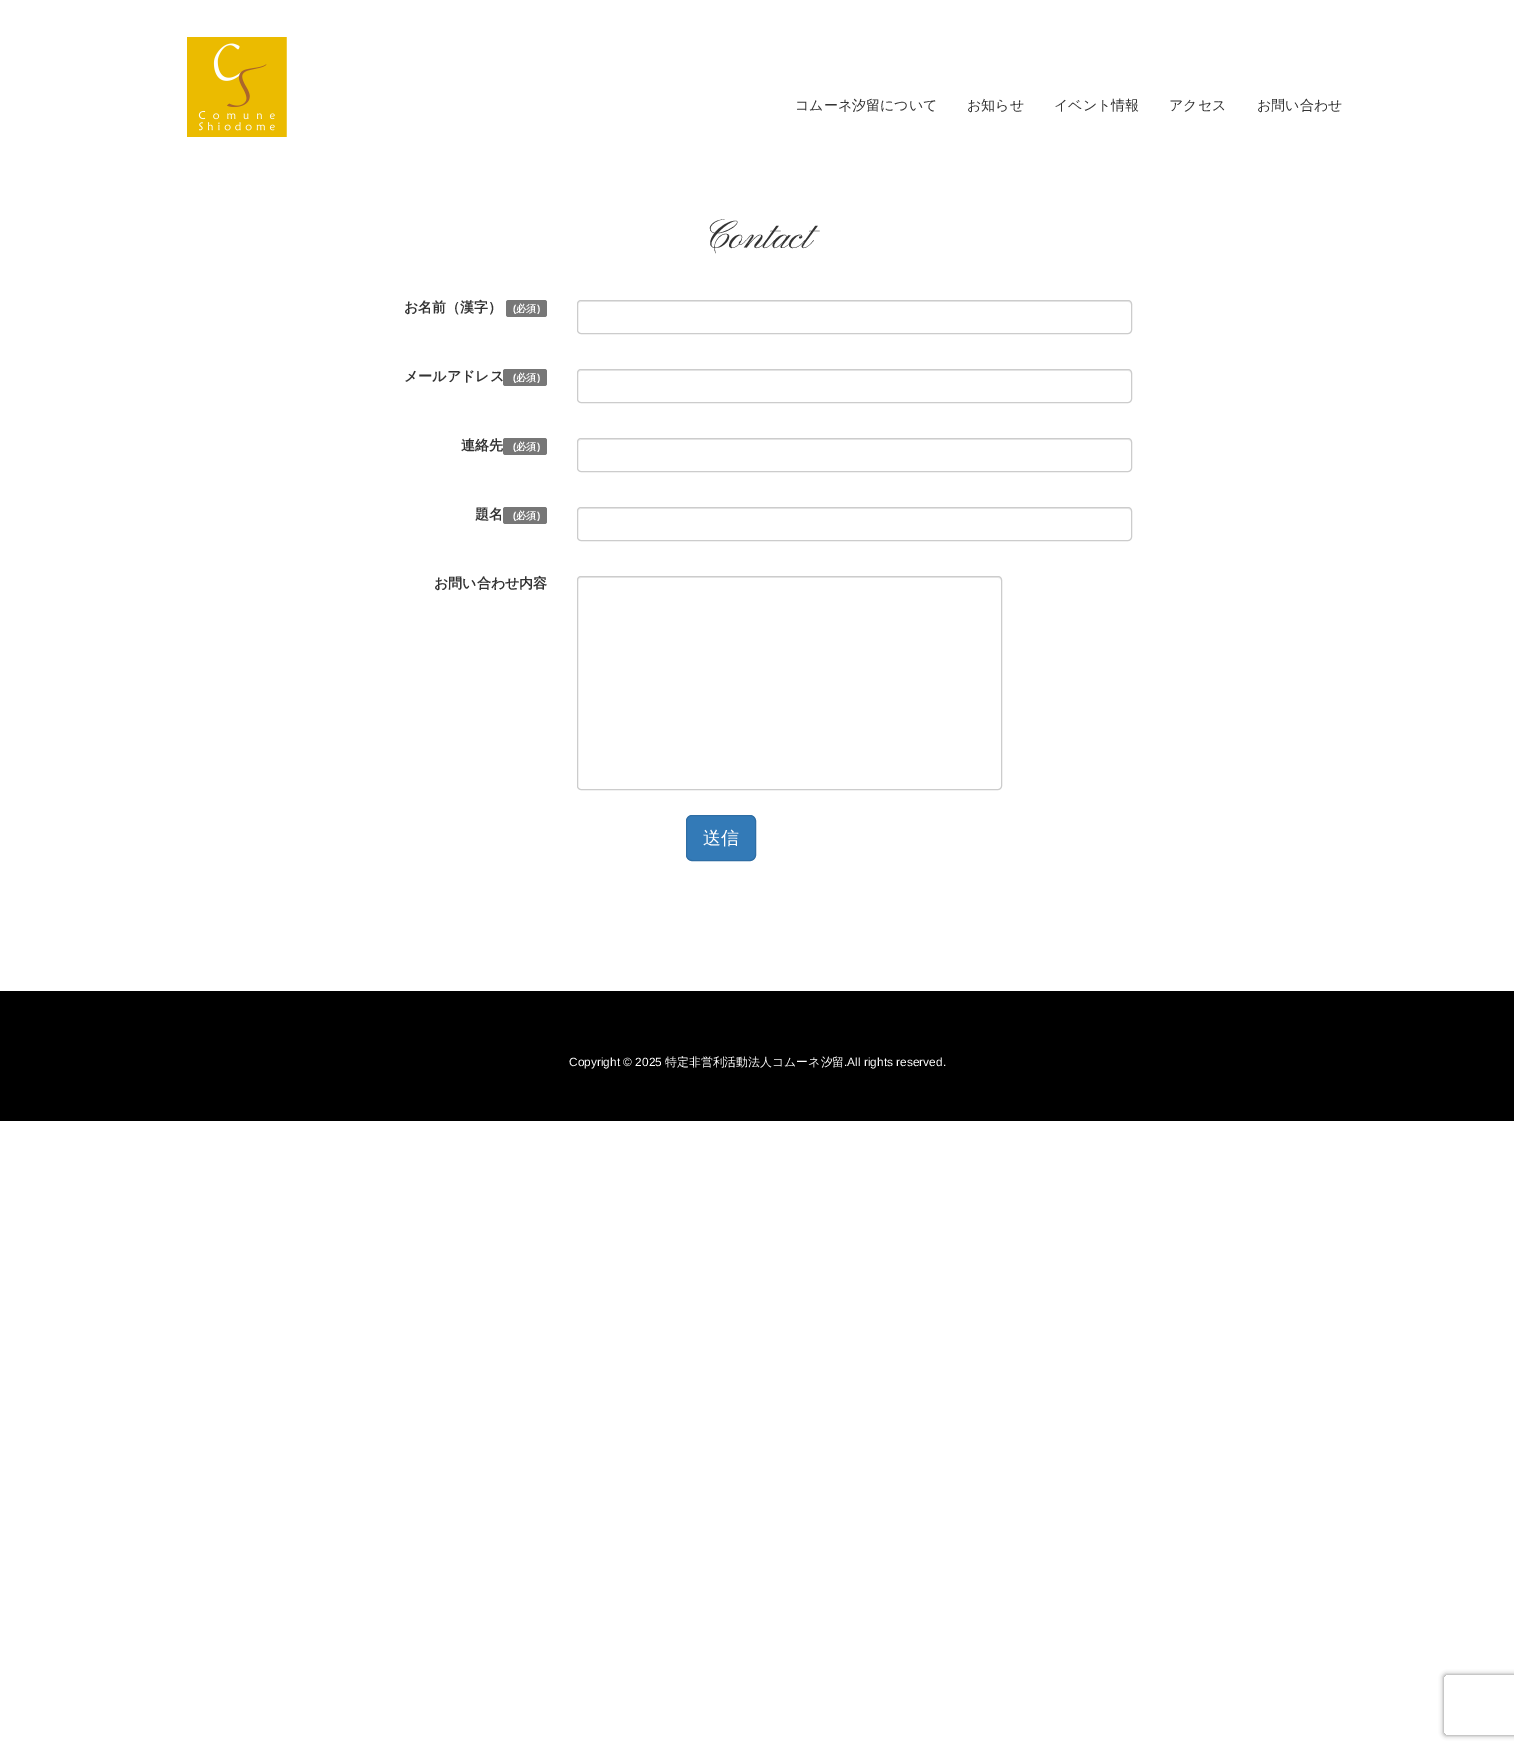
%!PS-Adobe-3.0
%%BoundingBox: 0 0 1514 1749
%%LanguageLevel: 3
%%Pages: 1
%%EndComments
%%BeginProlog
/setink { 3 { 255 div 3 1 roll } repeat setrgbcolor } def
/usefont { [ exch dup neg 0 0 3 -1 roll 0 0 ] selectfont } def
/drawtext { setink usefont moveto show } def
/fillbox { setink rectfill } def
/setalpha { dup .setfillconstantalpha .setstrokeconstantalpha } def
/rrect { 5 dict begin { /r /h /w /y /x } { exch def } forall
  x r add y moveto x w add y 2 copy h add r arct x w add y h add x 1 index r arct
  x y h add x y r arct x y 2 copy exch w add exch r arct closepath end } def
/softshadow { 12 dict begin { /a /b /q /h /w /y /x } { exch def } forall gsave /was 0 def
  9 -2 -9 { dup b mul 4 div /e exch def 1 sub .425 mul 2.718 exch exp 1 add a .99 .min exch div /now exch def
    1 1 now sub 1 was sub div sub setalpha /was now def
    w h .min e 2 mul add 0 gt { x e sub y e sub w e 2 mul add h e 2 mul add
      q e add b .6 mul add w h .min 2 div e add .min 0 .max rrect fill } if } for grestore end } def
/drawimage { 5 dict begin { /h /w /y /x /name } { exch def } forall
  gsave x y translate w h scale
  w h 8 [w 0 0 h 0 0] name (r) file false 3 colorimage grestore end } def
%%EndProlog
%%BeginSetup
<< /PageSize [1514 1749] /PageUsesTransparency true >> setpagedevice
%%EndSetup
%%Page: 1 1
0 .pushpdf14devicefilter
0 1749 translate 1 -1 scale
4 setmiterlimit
0 0 1514 1749 255 255 255 fillbox
(assets/img1.rgb) 187 37 100 100 drawimage
(コムーネ汐留について) 795 110 /WenQuanYiZenHei-Medium 14 51 51 51 drawtext
(お知らせ) 967 110 /WenQuanYiZenHei-Medium 14 51 51 51 drawtext
(イベント情報) 1054 110 /WenQuanYiZenHei-Medium 14 51 51 51 drawtext
(アクセス) 1169 110 /WenQuanYiZenHei-Medium 14 51 51 51 drawtext
(お問い合わせ) 1257 110 /WenQuanYiZenHei-Medium 14 51 51 51 drawtext
(Contact) 704 248 /PinyonScript-Regular 40 51 51 51 drawtext
(お名前（漢字）) 404 312 /WenQuanYiZenHei-Bold 14 51 51 51 drawtext
119 119 119 setink
506 300 41 17 2.5 rrect fill
(\() 513 312 /LiberationSans-Bold 10 255 255 255 drawtext
(必須) 516 312 /WenQuanYiZenHei-Bold 10 255 255 255 drawtext
(\)) 537 312 /LiberationSans-Bold 10 255 255 255 drawtext
236 236 236 setink
581 302 moveto 1128 302 lineto 1130 302 1131 303 1131 305 curveto 1131 303 1130 301 1128 301 curveto 581 301 lineto 579 302 lineto 578 303 lineto 578 305 lineto 578 303 579 302 581 302 curveto closepath fill
204 204 204 setink
577.5 300.5 554 33 3.5 rrect stroke
(メールアドレス) 404 381 /WenQuanYiZenHei-Bold 14 51 51 51 drawtext
119 119 119 setink
503 369 44 17 2.5 rrect fill
(\() 513 381 /LiberationSans-Bold 10 255 255 255 drawtext
(必須) 516 381 /WenQuanYiZenHei-Bold 10 255 255 255 drawtext
(\)) 537 381 /LiberationSans-Bold 10 255 255 255 drawtext
236 236 236 setink
581 371 moveto 1128 371 lineto 1130 371 1131 372 1131 374 curveto 1131 372 1130 370 1128 370 curveto 581 370 lineto 579 371 lineto 578 372 lineto 578 374 lineto 578 372 579 371 581 371 curveto closepath fill
204 204 204 setink
577.5 369.5 554 33 3.5 rrect stroke
(連絡先) 461 450 /WenQuanYiZenHei-Bold 14 51 51 51 drawtext
119 119 119 setink
503 438 44 17 2.5 rrect fill
(\() 513 450 /LiberationSans-Bold 10 255 255 255 drawtext
(必須) 516 450 /WenQuanYiZenHei-Bold 10 255 255 255 drawtext
(\)) 537 450 /LiberationSans-Bold 10 255 255 255 drawtext
236 236 236 setink
581 440 moveto 1128 440 lineto 1130 440 1131 441 1131 443 curveto 1131 441 1130 439 1128 439 curveto 581 439 lineto 579 440 lineto 578 441 lineto 578 443 lineto 578 441 579 440 581 440 curveto closepath fill
204 204 204 setink
577.5 438.5 554 33 3.5 rrect stroke
(題名) 475 519 /WenQuanYiZenHei-Bold 14 51 51 51 drawtext
119 119 119 setink
503 507 44 17 2.5 rrect fill
(\() 513 519 /LiberationSans-Bold 10 255 255 255 drawtext
(必須) 516 519 /WenQuanYiZenHei-Bold 10 255 255 255 drawtext
(\)) 537 519 /LiberationSans-Bold 10 255 255 255 drawtext
236 236 236 setink
581 509 moveto 1128 509 lineto 1130 509 1131 510 1131 512 curveto 1131 510 1130 508 1128 508 curveto 581 508 lineto 579 509 lineto 578 510 lineto 578 512 lineto 578 510 579 509 581 509 curveto closepath fill
204 204 204 setink
577.5 507.5 554 33 3.5 rrect stroke
(お問い合わせ内容) 434 588 /WenQuanYiZenHei-Bold 14 51 51 51 drawtext
236 236 236 setink
581 578 moveto 998 578 lineto 1000 578 1001 579 1001 581 curveto 1001 579 1000 577 998 577 curveto 581 577 lineto 579 577 578 579 578 581 curveto 578 579 579 578 581 578 curveto closepath fill
204 204 204 setink
577.5 576.5 424 213 3.5 rrect stroke
51 122 183 setink
686.5 815.5 69 45 5.5 rrect gsave fill grestore
46 109 164 setink
stroke
(送信) 703 844 /WenQuanYiZenHei-Medium 18 255 255 255 drawtext
0 991 1514 130 0 0 0 fillbox
(Copyright © 2025) 569 1066 /LiberationSans-Regular 11.9 255 255 255 drawtext
(特定非営利活動法人コムーネ汐留) 665 1066 /WenQuanYiZenHei-Medium 11.9 255 255 255 drawtext
(.All rights reserved.) 844 1066 /LiberationSans-Regular 11.9 255 255 255 drawtext
gsave
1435 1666 moveto 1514 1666 lineto 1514 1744 lineto 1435 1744 lineto closepath 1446 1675 moveto 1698 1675 lineto 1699 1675 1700 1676 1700 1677 curveto 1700 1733 lineto 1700 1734 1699 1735 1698 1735 curveto 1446 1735 lineto 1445 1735 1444 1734 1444 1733 curveto 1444 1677 lineto 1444 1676 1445 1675 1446 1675 curveto closepath eoclip newpath
128 128 128 setink
1444 1675 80 60 2 2.5 1 softshadow
grestore
.poppdf14devicefilter showpage
%%EOF
